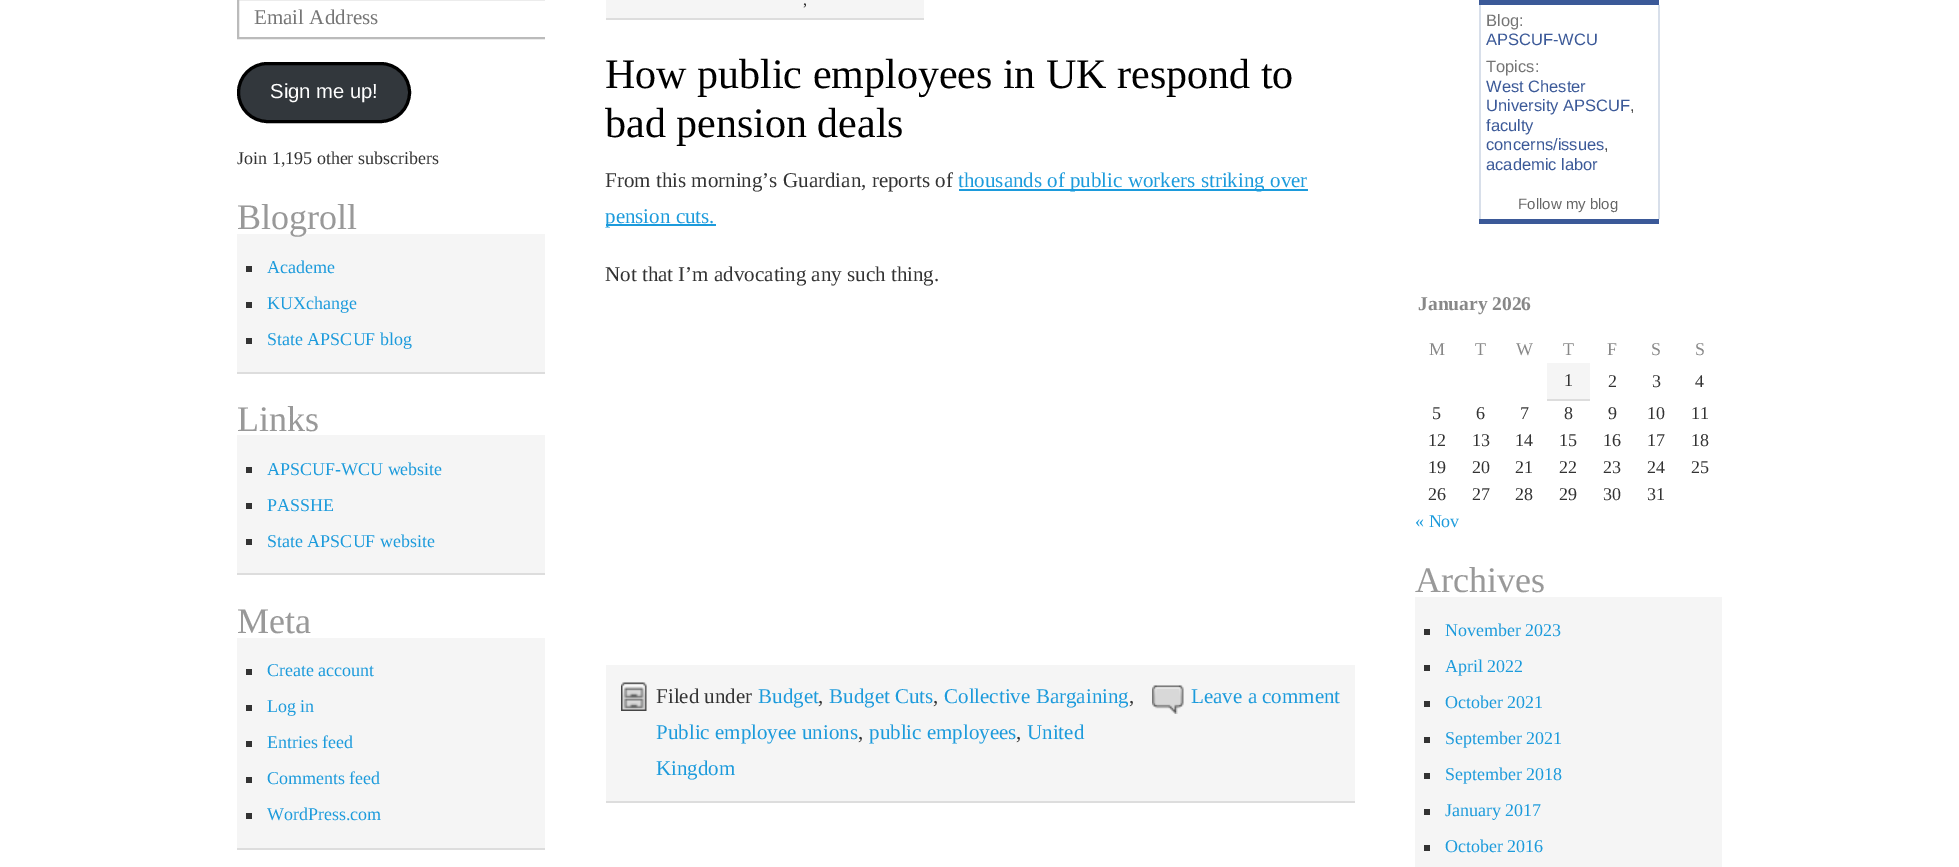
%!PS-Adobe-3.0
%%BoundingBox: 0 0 1959 867
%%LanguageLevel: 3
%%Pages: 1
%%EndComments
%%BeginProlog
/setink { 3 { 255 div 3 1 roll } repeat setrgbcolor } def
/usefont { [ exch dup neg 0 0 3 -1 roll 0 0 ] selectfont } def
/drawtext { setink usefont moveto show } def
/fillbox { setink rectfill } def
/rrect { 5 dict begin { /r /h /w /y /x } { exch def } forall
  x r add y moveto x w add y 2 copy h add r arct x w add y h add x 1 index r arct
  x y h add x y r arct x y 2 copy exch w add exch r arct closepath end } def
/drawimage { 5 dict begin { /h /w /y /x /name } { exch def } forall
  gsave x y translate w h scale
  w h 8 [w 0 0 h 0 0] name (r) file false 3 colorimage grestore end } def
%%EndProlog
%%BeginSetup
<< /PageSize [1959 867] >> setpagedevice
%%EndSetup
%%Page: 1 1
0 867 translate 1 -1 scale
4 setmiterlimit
0 0 1959 867 255 255 255 fillbox
gsave
237 0 308 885 rectclip
187 187 187 setink
2 setlinewidth
238 -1 324 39 rectstroke
grestore
(Email Address) 254 24 /LiberationSerif-Regular 21 117 117 117 drawtext
50 55 60 setink
238.5 63.5 171 58 29 rrect gsave fill grestore
0 0 0 setink
3 setlinewidth
stroke
(Sign me up!) 270 98 /LiberationSans-Regular 20.25 255 255 255 drawtext
(Join 1,195 other subscribers) 237 164 /LiberationSerif-Regular 18 51 51 51 drawtext
237 234 308 138 245 245 245 fillbox
(Blogroll) 237 229 /LiberationSerif-Regular 36 153 153 153 drawtext
237 372 308 2 221 221 221 fillbox
246 266 6 6 51 51 51 fillbox
(Academe) 267 273 /LiberationSerif-Regular 18 28 155 220 drawtext
246 302 6 6 51 51 51 fillbox
(KUXchange) 267 309 /LiberationSerif-Regular 18 28 155 220 drawtext
246 338 6 6 51 51 51 fillbox
(State APSCUF blog) 267 345 /LiberationSerif-Regular 18 28 155 220 drawtext
(Links) 237 431 /LiberationSerif-Regular 36 153 153 153 drawtext
237 435 308 138 245 245 245 fillbox
237 573 308 2 221 221 221 fillbox
246 467 6 6 51 51 51 fillbox
(APSCUF-WCU website) 267 475 /LiberationSerif-Regular 18 28 155 220 drawtext
246 503 6 6 51 51 51 fillbox
(PASSHE) 267 511 /LiberationSerif-Regular 18 28 155 220 drawtext
246 539 6 6 51 51 51 fillbox
(State APSCUF website) 267 547 /LiberationSerif-Regular 18 28 155 220 drawtext
(Meta) 237 633 /LiberationSerif-Regular 36 153 153 153 drawtext
237 638 308 210 245 245 245 fillbox
237 848 308 2 221 221 221 fillbox
246 669 6 6 51 51 51 fillbox
(Create account) 267 676 /LiberationSerif-Regular 18 28 155 220 drawtext
246 705 6 6 51 51 51 fillbox
(Log in) 267 712 /LiberationSerif-Regular 18 28 155 220 drawtext
246 741 6 6 51 51 51 fillbox
(Entries feed) 267 748 /LiberationSerif-Regular 18 28 155 220 drawtext
246 777 6 6 51 51 51 fillbox
(Comments feed) 267 784 /LiberationSerif-Regular 18 28 155 220 drawtext
246 813 6 6 51 51 51 fillbox
(WordPress.com) 267 820 /LiberationSerif-Regular 18 28 155 220 drawtext
606 0 318 18 245 245 245 fillbox
606 18 318 2 221 221 221 fillbox
(,) 803 5 /LiberationSerif-Regular 16.5 51 51 51 drawtext
(How public employees in UK respond to) 605 88 /LiberationSerif-Regular 42 0 0 0 drawtext
(bad pension deals) 605 137 /LiberationSerif-Regular 42 0 0 0 drawtext
(From this morning’s Guardian, reports of) 605 187 /LiberationSerif-Regular 21 51 51 51 drawtext
959 189 349 2 28 155 220 fillbox
(thousands of public workers striking over) 958 187 /LiberationSerif-Regular 21 28 155 220 drawtext
606 224 110 2 28 155 220 fillbox
(pension cuts.) 605 223 /LiberationSerif-Regular 21 28 155 220 drawtext
(Not that I’m advocating any such thing.) 605 281 /LiberationSerif-Regular 21 51 51 51 drawtext
606 665 749 136 245 245 245 fillbox
606 801 749 2 221 221 221 fillbox
(assets/img1.rgb) 621 682 26 29 drawimage
(Filed under) 656 703 /LiberationSerif-Regular 21 51 51 51 drawtext
(Budget) 758 703 /LiberationSerif-Regular 21 28 155 220 drawtext
(,) 818 703 /LiberationSerif-Regular 21 51 51 51 drawtext
(Budget Cuts) 829 703 /LiberationSerif-Regular 21 28 155 220 drawtext
(,) 933 703 /LiberationSerif-Regular 21 51 51 51 drawtext
(Collective Bargaining) 944 703 /LiberationSerif-Regular 21 28 155 220 drawtext
(,) 1129 703 /LiberationSerif-Regular 21 51 51 51 drawtext
(Public employee unions) 656 739 /LiberationSerif-Regular 21 28 155 220 drawtext
(,) 858 739 /LiberationSerif-Regular 21 51 51 51 drawtext
(public employees) 869 739 /LiberationSerif-Regular 21 28 155 220 drawtext
(,) 1016 739 /LiberationSerif-Regular 21 51 51 51 drawtext
(United) 1027 739 /LiberationSerif-Regular 21 28 155 220 drawtext
(Kingdom) 656 775 /LiberationSerif-Regular 21 28 155 220 drawtext
(assets/img2.rgb) 1152 685 32 29 drawimage
(Leave a comment) 1191 703 /LiberationSerif-Regular 21 28 155 220 drawtext
1479 0 180 224 59 89 152 fillbox
1481 5 177 214 255 255 255 fillbox
1658 5 2 214 216 223 234 fillbox
1479 5 2 214 216 223 234 fillbox
(Blog:) 1486 26 /LiberationSans-Regular 16.5 117 117 117 drawtext
(APSCUF-WCU) 1486 45 /LiberationSans-Regular 16.5 59 89 152 drawtext
(Topics:) 1486 72 /LiberationSans-Regular 16.5 117 117 117 drawtext
(West Chester) 1486 92 /LiberationSans-Regular 16.5 59 89 152 drawtext
(University APSCUF) 1486 111 /LiberationSans-Regular 16.5 59 89 152 drawtext
(,) 1630 111 /LiberationSans-Regular 16.5 68 68 68 drawtext
(faculty) 1486 131 /LiberationSans-Regular 16.5 59 89 152 drawtext
(concerns/issues) 1486 150 /LiberationSans-Regular 16.5 59 89 152 drawtext
(,) 1604 150 /LiberationSans-Regular 16.5 68 68 68 drawtext
(academic labor) 1486 170 /LiberationSans-Regular 16.5 59 89 152 drawtext
(Follow my blog) 1518 209 /LiberationSans-Regular 15 102 102 102 drawtext
(January 2026) 1418 310 /LiberationSerif-Bold 19.5 136 136 136 drawtext
(M) 1429 355 /LiberationSerif-Regular 18 136 136 136 drawtext
(T) 1475 355 /LiberationSerif-Regular 18 136 136 136 drawtext
(W) 1516 355 /LiberationSerif-Regular 18 136 136 136 drawtext
(T) 1563 355 /LiberationSerif-Regular 18 136 136 136 drawtext
(F) 1607 355 /LiberationSerif-Regular 18 136 136 136 drawtext
(S) 1651 355 /LiberationSerif-Regular 18 136 136 136 drawtext
(S) 1695 355 /LiberationSerif-Regular 18 136 136 136 drawtext
1547 363 43 36 245 245 245 fillbox
1547 399 43 2 221 221 221 fillbox
(1) 1564 386 /LiberationSerif-Regular 18 51 51 51 drawtext
(2) 1608 387 /LiberationSerif-Regular 18 51 51 51 drawtext
(3) 1652 387 /LiberationSerif-Regular 18 51 51 51 drawtext
(4) 1695 387 /LiberationSerif-Regular 18 51 51 51 drawtext
(5) 1432 419 /LiberationSerif-Regular 18 51 51 51 drawtext
(6) 1476 419 /LiberationSerif-Regular 18 51 51 51 drawtext
(7) 1520 419 /LiberationSerif-Regular 18 51 51 51 drawtext
(8) 1564 419 /LiberationSerif-Regular 18 51 51 51 drawtext
(9) 1608 419 /LiberationSerif-Regular 18 51 51 51 drawtext
(10) 1647 419 /LiberationSerif-Regular 18 51 51 51 drawtext
(11) 1691 419 /LiberationSerif-Regular 18 51 51 51 drawtext
(12) 1428 446 /LiberationSerif-Regular 18 51 51 51 drawtext
(13) 1472 446 /LiberationSerif-Regular 18 51 51 51 drawtext
(14) 1515 446 /LiberationSerif-Regular 18 51 51 51 drawtext
(15) 1559 446 /LiberationSerif-Regular 18 51 51 51 drawtext
(16) 1603 446 /LiberationSerif-Regular 18 51 51 51 drawtext
(17) 1647 446 /LiberationSerif-Regular 18 51 51 51 drawtext
(18) 1691 446 /LiberationSerif-Regular 18 51 51 51 drawtext
(19) 1428 473 /LiberationSerif-Regular 18 51 51 51 drawtext
(20) 1472 473 /LiberationSerif-Regular 18 51 51 51 drawtext
(21) 1515 473 /LiberationSerif-Regular 18 51 51 51 drawtext
(22) 1559 473 /LiberationSerif-Regular 18 51 51 51 drawtext
(23) 1603 473 /LiberationSerif-Regular 18 51 51 51 drawtext
(24) 1647 473 /LiberationSerif-Regular 18 51 51 51 drawtext
(25) 1691 473 /LiberationSerif-Regular 18 51 51 51 drawtext
(26) 1428 500 /LiberationSerif-Regular 18 51 51 51 drawtext
(27) 1472 500 /LiberationSerif-Regular 18 51 51 51 drawtext
(28) 1515 500 /LiberationSerif-Regular 18 51 51 51 drawtext
(29) 1559 500 /LiberationSerif-Regular 18 51 51 51 drawtext
(30) 1603 500 /LiberationSerif-Regular 18 51 51 51 drawtext
(31) 1647 500 /LiberationSerif-Regular 18 51 51 51 drawtext
(« Nov) 1415 527 /LiberationSerif-Regular 18 28 155 220 drawtext
(Archives) 1415 592 /LiberationSerif-Regular 36 153 153 153 drawtext
1415 597 307 270 245 245 245 fillbox
1424 629 6 6 51 51 51 fillbox
(November 2023) 1445 636 /LiberationSerif-Regular 18 28 155 220 drawtext
1424 665 6 6 51 51 51 fillbox
(April 2022) 1445 672 /LiberationSerif-Regular 18 28 155 220 drawtext
1424 701 6 6 51 51 51 fillbox
(October 2021) 1445 708 /LiberationSerif-Regular 18 28 155 220 drawtext
1424 737 6 6 51 51 51 fillbox
(September 2021) 1445 744 /LiberationSerif-Regular 18 28 155 220 drawtext
1424 773 6 6 51 51 51 fillbox
(September 2018) 1445 780 /LiberationSerif-Regular 18 28 155 220 drawtext
1424 809 6 6 51 51 51 fillbox
(January 2017) 1445 816 /LiberationSerif-Regular 18 28 155 220 drawtext
1424 845 6 6 51 51 51 fillbox
(October 2016) 1445 852 /LiberationSerif-Regular 18 28 155 220 drawtext
showpage
%%EOF
